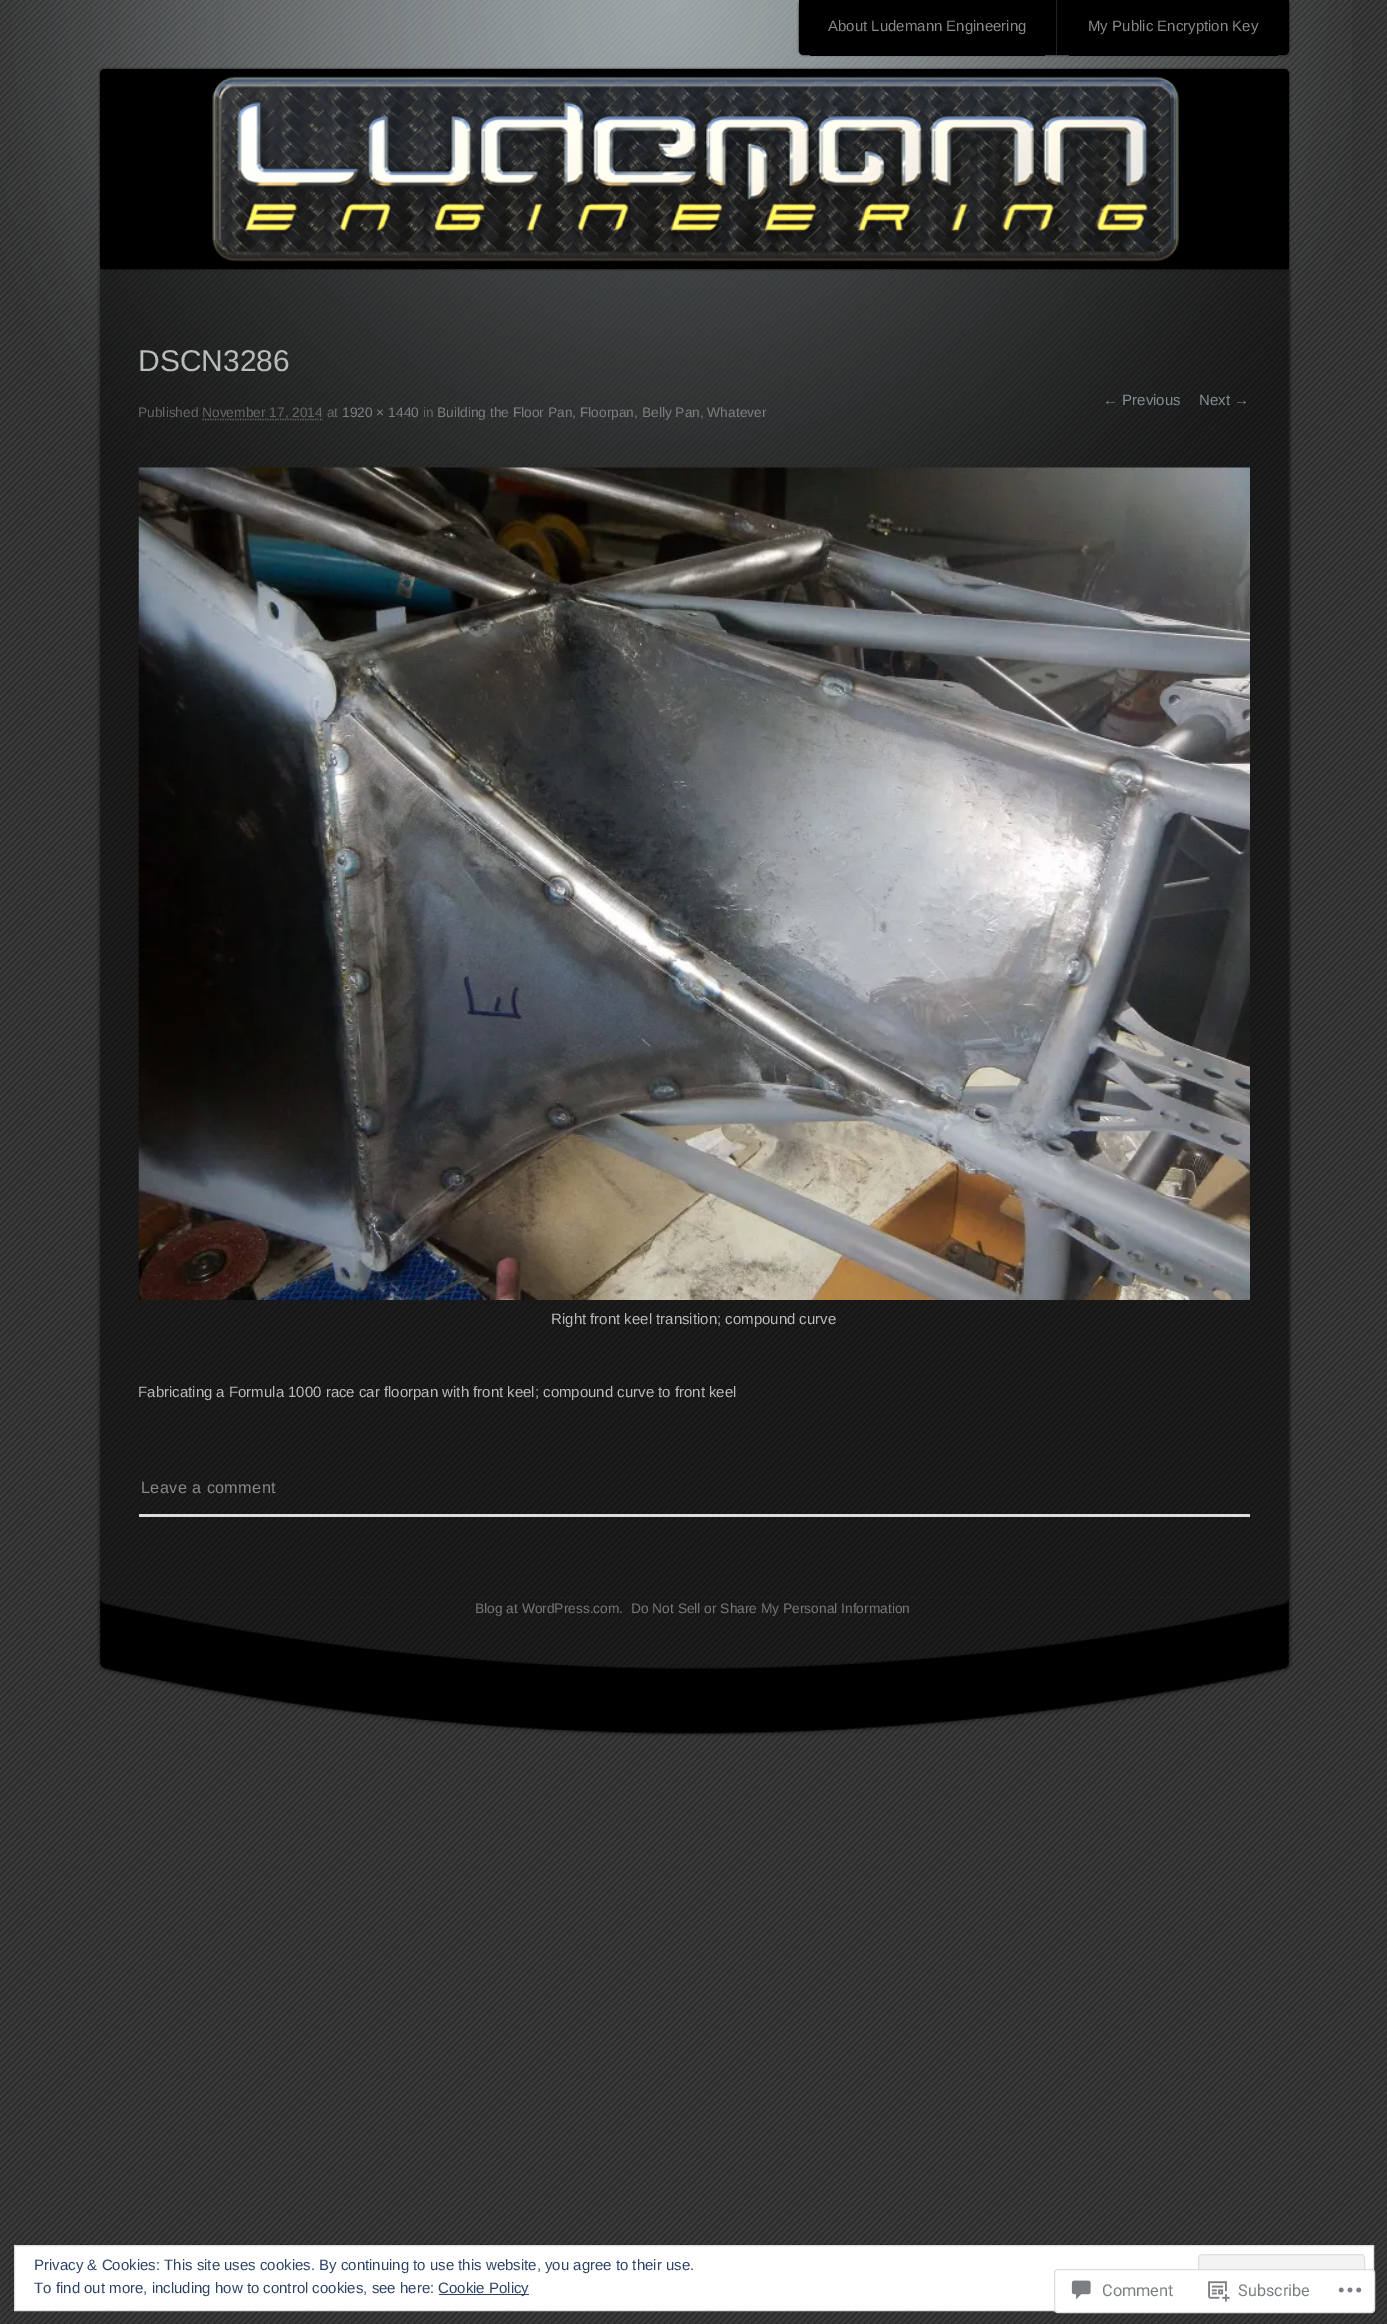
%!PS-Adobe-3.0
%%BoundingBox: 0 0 1387 2324
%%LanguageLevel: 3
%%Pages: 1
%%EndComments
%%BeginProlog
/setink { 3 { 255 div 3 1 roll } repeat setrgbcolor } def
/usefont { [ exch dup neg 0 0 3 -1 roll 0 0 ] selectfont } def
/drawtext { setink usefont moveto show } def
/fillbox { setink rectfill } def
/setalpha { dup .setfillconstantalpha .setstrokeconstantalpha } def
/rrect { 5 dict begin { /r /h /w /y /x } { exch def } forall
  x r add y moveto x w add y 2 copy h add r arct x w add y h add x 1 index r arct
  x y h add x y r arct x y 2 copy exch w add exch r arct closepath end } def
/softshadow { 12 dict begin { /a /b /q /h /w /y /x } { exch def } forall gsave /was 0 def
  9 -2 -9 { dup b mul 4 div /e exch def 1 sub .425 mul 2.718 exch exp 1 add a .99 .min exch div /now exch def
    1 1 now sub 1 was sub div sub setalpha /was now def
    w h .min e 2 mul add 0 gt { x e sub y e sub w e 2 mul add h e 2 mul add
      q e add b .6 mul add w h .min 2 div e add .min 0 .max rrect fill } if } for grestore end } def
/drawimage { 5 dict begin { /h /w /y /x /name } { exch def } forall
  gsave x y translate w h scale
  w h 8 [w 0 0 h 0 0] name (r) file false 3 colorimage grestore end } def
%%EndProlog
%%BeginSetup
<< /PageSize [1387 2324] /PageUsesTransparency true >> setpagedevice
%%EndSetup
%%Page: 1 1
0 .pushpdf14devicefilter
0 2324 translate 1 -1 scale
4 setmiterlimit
0 0 1387 2324 255 255 255 fillbox
(assets/img1.rgb) 0 0 1387 2324 drawimage
(assets/img2.rgb) 0 0 1352 468 drawimage
0 0 0 setink
799 0 490 55 5 1 1 softshadow
799 0 moveto 1289 0 lineto 1289 50 lineto 1289 53 1287 55 1284 55 curveto 804 55 lineto 801 55 799 53 799 50 curveto closepath fill
810 55 235 1 0 0 0 fillbox
(About Ludemann Engineering) 828 31 /LiberationSans-Regular 15 136 136 136 drawtext
1056 0 1 55 34 34 34 fillbox
1069 55 209 1 0 0 0 fillbox
(My Public Encryption Key) 1088 31 /LiberationSans-Regular 15 136 136 136 drawtext
(assets/img6.rgb) 97 1597 1195 139 drawimage
(assets/img4.rgb) 97 268 1195 1330 drawimage
0 0 0 setink
100 69 1189 200 5 1 1 softshadow
105 69 moveto 1284 69 lineto 1287 69 1289 71 1289 74 curveto 1289 269 lineto 100 269 lineto 100 74 lineto 100 71 102 69 105 69 curveto closepath fill
(assets/img3.rgb) 100 68 1189 194 drawimage
(DSCN3286) 138 371 /LiberationSans-Regular 30 184 186 187 drawtext
(← Previous) 1103 405 /LiberationSans-Regular 15 127 142 145 drawtext
(Next →) 1199 405 /LiberationSans-Regular 15 127 142 145 drawtext
(Published) 138 417 /LiberationSans-Regular 13.75 102 102 102 drawtext
1.2 setlinewidth
[1.25 1.25] 0 setdash
202.5 419.5 moveto 323 419.5 lineto stroke
(November 17, 2014 at) 202 417 /LiberationSans-Regular 13.75 102 102 102 drawtext
(1920 × 1440) 342 417 /LiberationSans-Regular 13.75 121 127 128 drawtext
(in) 423 417 /LiberationSans-Regular 13.75 102 102 102 drawtext
(Building the Floor Pan, Floorpan, Belly Pan, Whatever) 437 417 /LiberationSans-Regular 13.75 121 127 128 drawtext
(assets/img5.rgb) 138 467 1112 833 drawimage
(Right front keel transition; compound curve) 551 1324 /LiberationSans-Regular 15 184 186 187 drawtext
(Fabricating a Formula 1000 race car floorpan with front keel; compound curve to front keel) 138 1397 /LiberationSans-Regular 15 184 186 187 drawtext
/LiberationSans-Regular 16.25 usefont
136 136 136 setink
141 1493 moveto 0.4 0 (Leave a comment) ashow
139 1514 1111 3 220 220 222 fillbox
(Blog at WordPress.com.) 475 1613 /LiberationSans-Regular 13.75 119 119 119 drawtext
(Do Not Sell or Share My Personal Information) 631 1613 /LiberationSans-Regular 13.75 119 119 119 drawtext
255 255 255 setink
14.5 2245.5 moveto 1373.5 2245.5 lineto 1373.5 2310.5 lineto 14.5 2310.5 lineto closepath gsave fill grestore
222 222 222 setink
1 setlinewidth
[] 0 setdash
stroke
(Privacy & Cookies: This site uses cookies. By continuing to use this website, you agree to their use.) 34 2270 /LiberationSans-Regular 15 46 68 103 drawtext
243 243 243 setink
1198.5 2254.5 166 48 3.5 rrect gsave fill grestore
222 222 222 setink
stroke
(To find out more, including how to control cookies, see here:) 34 2293 /LiberationSans-Regular 15 46 68 103 drawtext
439 2294 90 1 46 68 103 fillbox
(Cookie Policy) 438 2293 /LiberationSans-Regular 15 46 68 103 drawtext
0.98 setalpha
255 255 255 setink
1054 2269 321 44 4 rrect fill
220 220 222 setink
1054.5 2269.5 320 43 3.5 rrect stroke
1 setalpha
(assets/img7.rgb) 1071 2280 20 20 drawimage
(Comment) 1102 2296 /Roboto-Regular 16.25 121 127 128 drawtext
(assets/img8.rgb) 1208 2281 22 21 drawimage
(Subscribe) 1238 2296 /Roboto-Regular 16.25 121 127 128 drawtext
(assets/img9.rgb) 1338 2287 24 6 drawimage
.poppdf14devicefilter showpage
%%EOF
